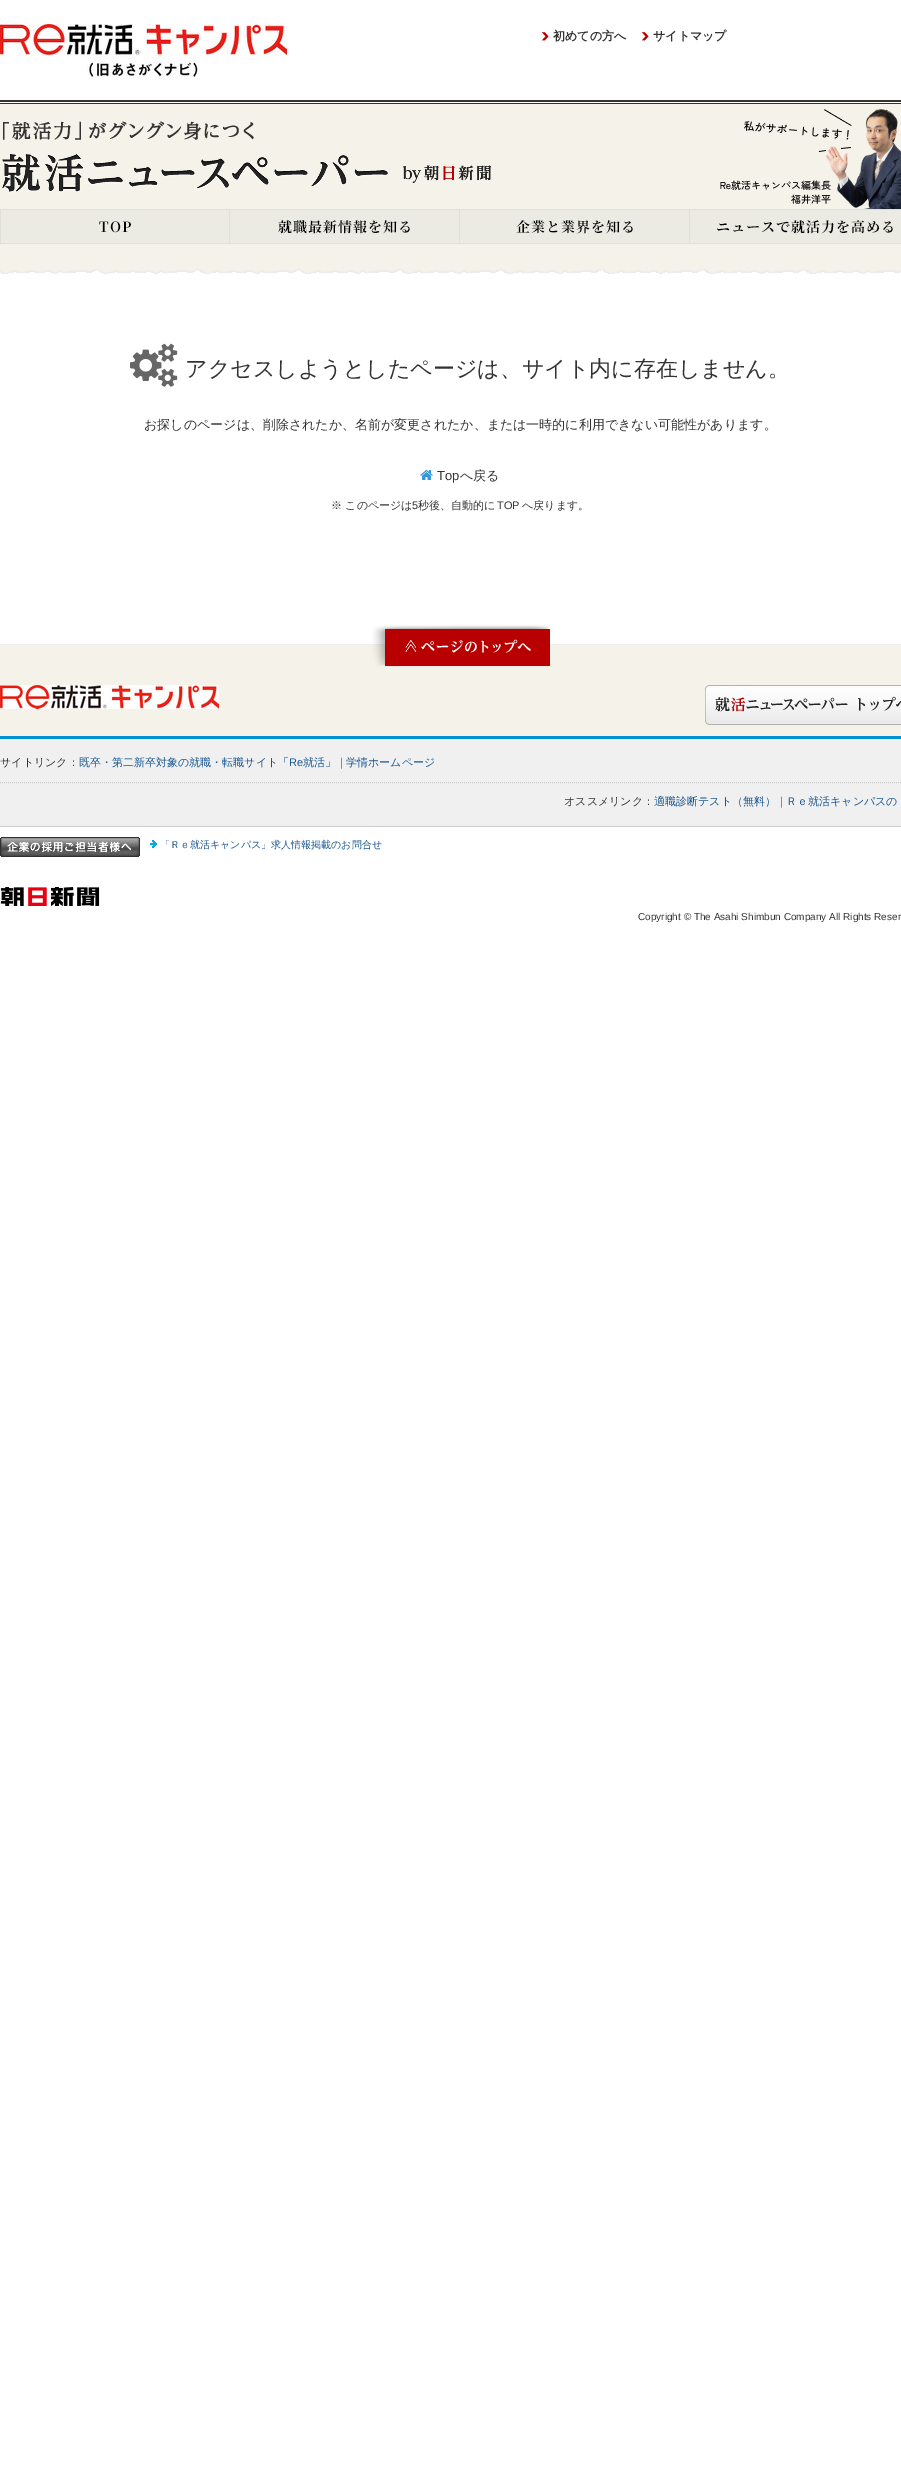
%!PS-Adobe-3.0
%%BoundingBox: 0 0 901 2476
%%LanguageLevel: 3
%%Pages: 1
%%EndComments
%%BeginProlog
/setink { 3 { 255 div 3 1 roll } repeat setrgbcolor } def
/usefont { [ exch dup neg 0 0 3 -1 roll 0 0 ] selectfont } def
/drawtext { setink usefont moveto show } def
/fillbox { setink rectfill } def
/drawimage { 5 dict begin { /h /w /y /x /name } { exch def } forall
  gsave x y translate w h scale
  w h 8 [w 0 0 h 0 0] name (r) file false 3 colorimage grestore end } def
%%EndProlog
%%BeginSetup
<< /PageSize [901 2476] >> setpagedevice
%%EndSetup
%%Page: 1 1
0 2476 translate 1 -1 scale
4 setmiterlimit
0 0 901 2476 255 255 255 fillbox
0 104 901 164 245 242 233 fillbox
(assets/img1.rgb) 0 268 901 6 drawimage
(assets/img2.rgb) 0 100 901 4 drawimage
(assets/img3.rgb) 0 24 287 53 drawimage
(assets/img4.rgb) 542 32 7 9 drawimage
(初めての方へ) 553 40 /WenQuanYiZenHei-Bold 12 51 51 51 drawtext
(assets/img4.rgb) 642 32 7 9 drawimage
(サイトマップ) 653 40 /WenQuanYiZenHei-Bold 12 51 51 51 drawtext
(assets/img5.rgb) 2 121 489 72 drawimage
(assets/img6.rgb) 720 109 181 100 drawimage
(assets/img7.rgb) 0 209 230 35 drawimage
(assets/img8.rgb) 230 209 230 35 drawimage
(assets/img9.rgb) 460 209 230 35 drawimage
(assets/img10.rgb) 690 209 211 35 drawimage
(assets/img11.rgb) 130 343 48 44 drawimage
(アクセスしようとしたページは、サイト内に存在しません。) 185 376 /WenQuanYiZenHei-Medium 22 51 51 51 drawtext
(お探しのページは、削除されたか、名前が変更されたか、または一時的に利用できない可能性があります。) 144 429 /WenQuanYiZenHei-Medium 13 51 51 51 drawtext
(assets/img12.rgb) 420 470 13 10 drawimage
(Top) 437 480 /LiberationSans-Regular 13 51 51 51 drawtext
(へ戻る) 460 480 /WenQuanYiZenHei-Medium 13 51 51 51 drawtext
(※ このページは) 331 509 /WenQuanYiZenHei-Medium 11 51 51 51 drawtext
(5) 412 509 /LiberationSans-Regular 11 51 51 51 drawtext
(秒後、自動的に) 418 509 /WenQuanYiZenHei-Medium 11 51 51 51 drawtext
(TOP) 497 509 /LiberationSans-Regular 11 51 51 51 drawtext
(へ戻ります。) 522 509 /WenQuanYiZenHei-Medium 11 51 51 51 drawtext
0 645 901 91 245 242 233 fillbox
0 644 901 1 239 239 239 fillbox
(assets/img13.rgb) 372 625 178 42 drawimage
(assets/img14.rgb) 0 685 219 24 drawimage
(assets/img15.rgb) 705 685 196 40 drawimage
0 739 901 87 240 240 240 fillbox
0 736 901 3 0 147 211 fillbox
204 204 204 setink
[1 1] 0 setdash
0 782.5 moveto 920 782.5 lineto stroke
(サイトリンク：) 0 766 /WenQuanYiZenHei-Medium 11 51 51 51 drawtext
(既卒・第二新卒対象の就職・転職サイト「) 79 766 /WenQuanYiZenHei-Medium 11 26 87 144 drawtext
(Re) 289 766 /LiberationSans-Regular 11 26 87 144 drawtext
(就活」) 303 766 /WenQuanYiZenHei-Medium 11 26 87 144 drawtext
(｜) 336 766 /WenQuanYiZenHei-Medium 11 51 51 51 drawtext
(学情ホームページ) 346 766 /WenQuanYiZenHei-Medium 11 26 87 144 drawtext
(オススメリンク：) 564 805 /WenQuanYiZenHei-Medium 11 51 51 51 drawtext
(適職診断テスト（無料）) 654 805 /WenQuanYiZenHei-Medium 11 26 87 144 drawtext
(｜) 776 805 /WenQuanYiZenHei-Medium 11 51 51 51 drawtext
(Ｒｅ就活キャンパスの) 786 805 /WenQuanYiZenHei-Medium 11 26 87 144 drawtext
0 826 901 1 204 204 204 fillbox
(assets/img16.rgb) 0 837 140 20 drawimage
(assets/img17.rgb) 150 840 7 8 drawimage
(「Ｒｅ就活キャンパス」求人情報掲載のお問合せ) 160 848 /WenQuanYiZenHei-Medium 10 26 87 144 drawtext
(assets/img18.rgb) 0 887 100 19 drawimage
(Copyright © The Asahi Shimbun Company All Rights Reser) 638 920 /LiberationSans-Regular 10 51 51 51 drawtext
showpage
%%EOF
